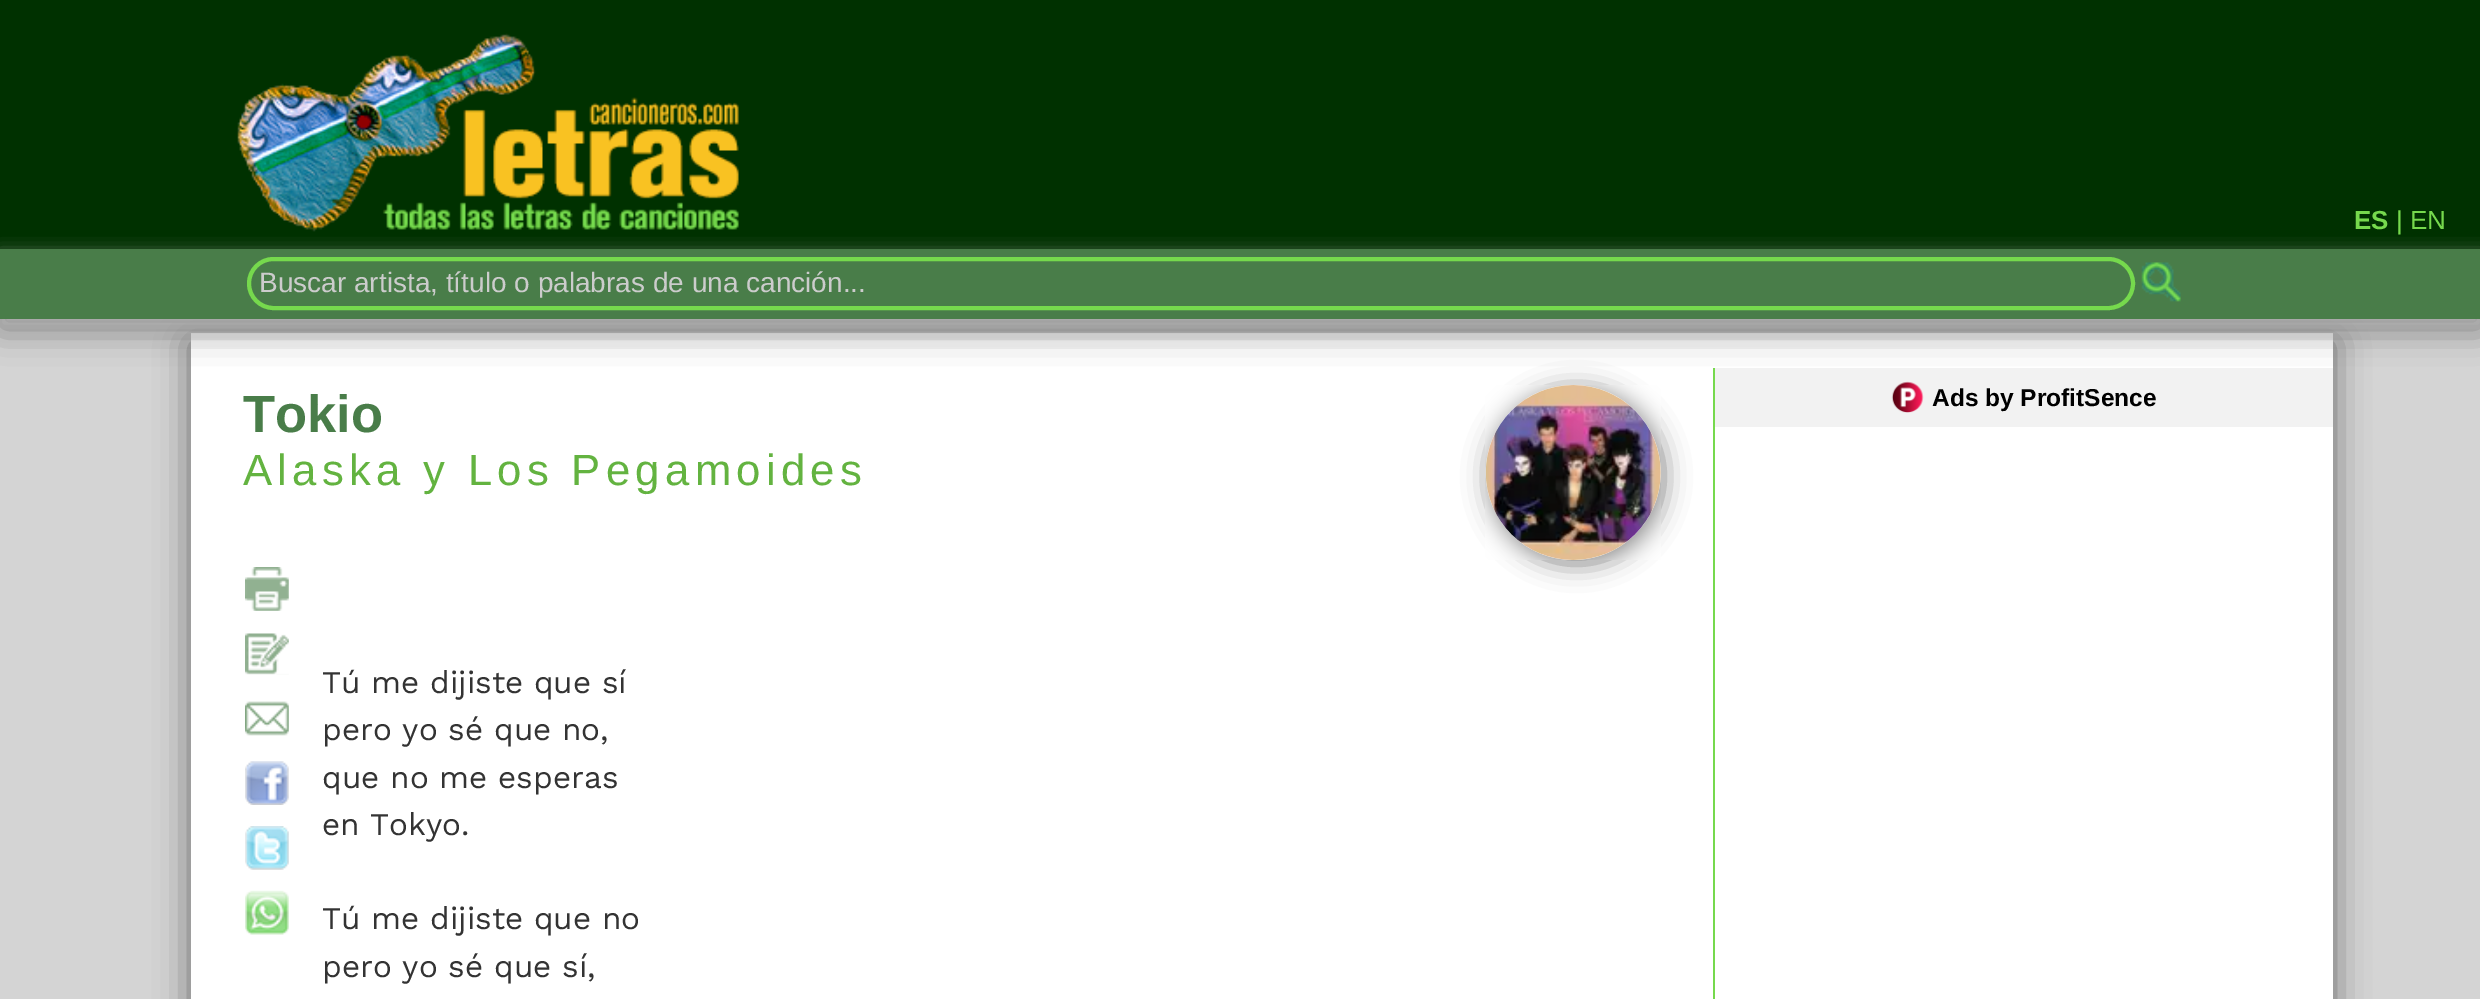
%!PS-Adobe-3.0
%%BoundingBox: 0 0 2480 999
%%LanguageLevel: 3
%%Pages: 1
%%EndComments
%%BeginProlog
/setink { 3 { 255 div 3 1 roll } repeat setrgbcolor } def
/usefont { [ exch dup neg 0 0 3 -1 roll 0 0 ] selectfont } def
/drawtext { setink usefont moveto show } def
/fillbox { setink rectfill } def
/setalpha { dup .setfillconstantalpha .setstrokeconstantalpha } def
/rrect { 5 dict begin { /r /h /w /y /x } { exch def } forall
  x r add y moveto x w add y 2 copy h add r arct x w add y h add x 1 index r arct
  x y h add x y r arct x y 2 copy exch w add exch r arct closepath end } def
/softshadow { 12 dict begin { /a /b /q /h /w /y /x } { exch def } forall gsave /was 0 def
  9 -2 -9 { dup b mul 4 div /e exch def 1 sub .425 mul 2.718 exch exp 1 add a .99 .min exch div /now exch def
    1 1 now sub 1 was sub div sub setalpha /was now def
    w h .min e 2 mul add 0 gt { x e sub y e sub w e 2 mul add h e 2 mul add
      q e add b .6 mul add w h .min 2 div e add .min 0 .max rrect fill } if } for grestore end } def
/drawimage { 5 dict begin { /h /w /y /x /name } { exch def } forall
  gsave x y translate w h scale
  w h 8 [w 0 0 h 0 0] name (r) file false 3 colorimage grestore end } def
%%EndProlog
%%BeginSetup
<< /PageSize [2480 999] /PageUsesTransparency true >> setpagedevice
%%EndSetup
%%Page: 1 1
0 .pushpdf14devicefilter
0 999 translate 1 -1 scale
4 setmiterlimit
0 0 2480 999 212 212 212 fillbox
102 102 102 setink
191 341 2142 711 0 17.5 1 softshadow
191 333 2142 666 255 255 255 fillbox
1713 368 2 631 118 217 77 fillbox
1715 368 618 59 242 242 242 fillbox
102 102 102 setink
0 9 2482 318 0 17.5 1 softshadow
0 0 2480 249 0 49 0 fillbox
176 176 176 setink
0 257 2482 70 0 9 1 softshadow
(assets/img1.rgb) 237 33 502 199 drawimage
(ES) 2354 229 /LiberationSans-Bold 26 118 217 77 drawtext
(| EN) 2396 229 /LiberationSans-Regular 26 118 217 77 drawtext
0 249 2480 70 73 125 73 fillbox
118 217 77 setink
4 setlinewidth
249 259 1884 49 24.5 rrect stroke
(Buscar artista, título o palabras de una canción...) 259 292 /LiberationSans-Regular 28 204 204 204 drawtext
(assets/img2.rgb) 2141 262 40 40 drawimage
(Tokio) 243 432 /LiberationSans-Bold 52.5 73 125 73 drawtext
128 128 128 setink
1489 389 175 175 87.5 13 1 softshadow
(assets/img3.rgb) 1485 385 176 175 drawimage
/LiberationSans-Regular 43.75 usefont
99 179 64 setink
243 485 moveto 5.25 0 (Alaska y Los Pegamoides) ashow
(assets/img4.rgb) 245 567 44 44 drawimage
(assets/img5.rgb) 245 633 44 42 drawimage
(assets/img6.rgb) 245 701 44 35 drawimage
(assets/img7.rgb) 245 761 44 44 drawimage
(assets/img8.rgb) 245 826 44 44 drawimage
(assets/img9.rgb) 245 890 44 45 drawimage
(Tú me dijiste que sí) 322 693 /WorkSans-Regular 31.5 51 51 51 drawtext
(pero yo sé que no,) 322 740 /WorkSans-Regular 31.5 51 51 51 drawtext
(que no me esperas) 322 788 /WorkSans-Regular 31.5 51 51 51 drawtext
(en Tokyo.) 322 835 /WorkSans-Regular 31.5 51 51 51 drawtext
(Tú me dijiste que no) 322 929 /WorkSans-Regular 31.5 51 51 51 drawtext
(pero yo sé que sí,) 322 977 /WorkSans-Regular 31.5 51 51 51 drawtext
(assets/img10.rgb) 1891 381 33 32 drawimage
(Ads by ProfitSence) 1932 406 /LiberationSans-Bold 24.5 0 0 0 drawtext
.poppdf14devicefilter showpage
%%EOF
